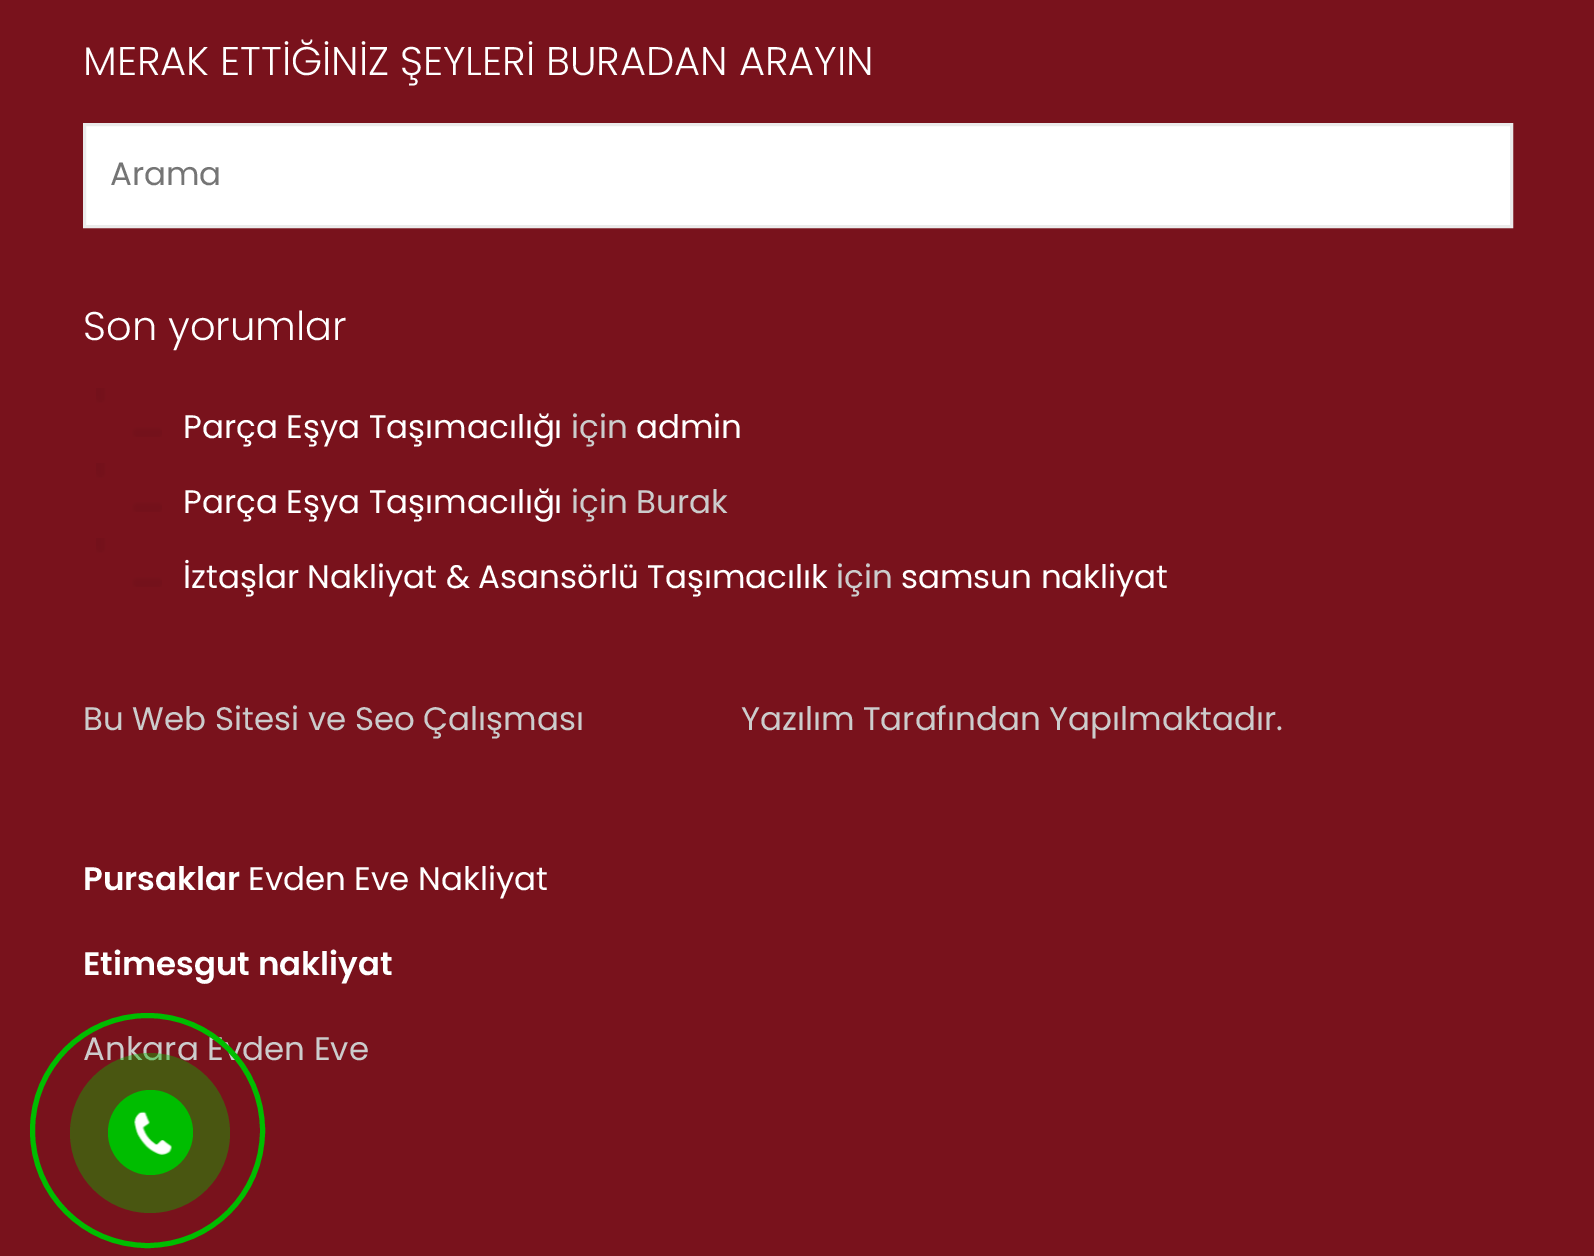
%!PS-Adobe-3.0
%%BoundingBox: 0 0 1594 1256
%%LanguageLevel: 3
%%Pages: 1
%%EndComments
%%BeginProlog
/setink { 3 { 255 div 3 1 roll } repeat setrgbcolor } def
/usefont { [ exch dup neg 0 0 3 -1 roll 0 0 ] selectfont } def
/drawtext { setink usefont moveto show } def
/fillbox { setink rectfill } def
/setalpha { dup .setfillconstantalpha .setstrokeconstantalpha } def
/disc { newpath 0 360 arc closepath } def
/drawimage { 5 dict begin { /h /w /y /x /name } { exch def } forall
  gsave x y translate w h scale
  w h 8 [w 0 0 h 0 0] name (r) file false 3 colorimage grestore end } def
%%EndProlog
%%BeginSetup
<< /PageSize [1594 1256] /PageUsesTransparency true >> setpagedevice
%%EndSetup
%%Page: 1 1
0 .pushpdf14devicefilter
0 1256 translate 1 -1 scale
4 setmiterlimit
0 0 1594 1256 121 18 28 fillbox
(MERAK ETTİĞİNİZ ŞEYLERİ BURADAN ARAYIN) 83 75 /Poppins-Light 40 255 255 255 drawtext
84.5 124.5 moveto 1511.5 124.5 lineto 1511.5 226.5 lineto 84.5 226.5 lineto closepath gsave fill grestore
235 235 235 setink
3 setlinewidth
stroke
(Arama) 110 185 /Poppins-Regular 32.5 117 117 117 drawtext
(Son yorumlar) 83 340 /Poppins-Light 40 255 255 255 drawtext
(assets/img1.rgb) 96 388 66 49 drawimage
(Parça Eşya Taşımacılığı) 183 438 /Poppins-Regular 32.5 255 255 255 drawtext
(için) 571 438 /Poppins-Regular 32.5 204 204 204 drawtext
(admin) 636 438 /Poppins-Regular 32.5 255 255 255 drawtext
(assets/img1.rgb) 96 463 66 49 drawimage
(Parça Eşya Taşımacılığı) 183 513 /Poppins-Regular 32.5 255 255 255 drawtext
(için Burak) 571 513 /Poppins-Regular 32.5 204 204 204 drawtext
(assets/img1.rgb) 96 538 66 49 drawimage
(İztaşlar Nakliyat & Asansörlü Taşımacılık) 183 588 /Poppins-Regular 32.5 255 255 255 drawtext
(için) 836 588 /Poppins-Regular 32.5 204 204 204 drawtext
(samsun nakliyat) 901 588 /Poppins-Regular 32.5 255 255 255 drawtext
(Bu Web Sitesi ve Seo Çalışması) 83 730 /Poppins-Regular 32.5 204 204 204 drawtext
(Yazılım Tarafından Yapılmaktadır.) 741 730 /Poppins-Regular 32.5 204 204 204 drawtext
(Pursaklar) 83 890 /Poppins-SemiBold 32.5 255 255 255 drawtext
(Evden Eve Nakliyat) 248 890 /Poppins-Regular 32.5 255 255 255 drawtext
(Etimesgut nakliyat) 83 975 /Poppins-SemiBold 32.5 255 255 255 drawtext
(Ankara Evden Eve) 83 1060 /Poppins-Regular 32.5 204 204 204 drawtext
0 189 0 setink
5 setlinewidth
147.5 1130.5 115 disc stroke
0.4 setalpha
150 1133 80 disc fill
1 setalpha
150.5 1132.5 42.5 disc fill
(assets/img2.rgb) 134 1111 38 44 drawimage
.poppdf14devicefilter showpage
%%EOF
